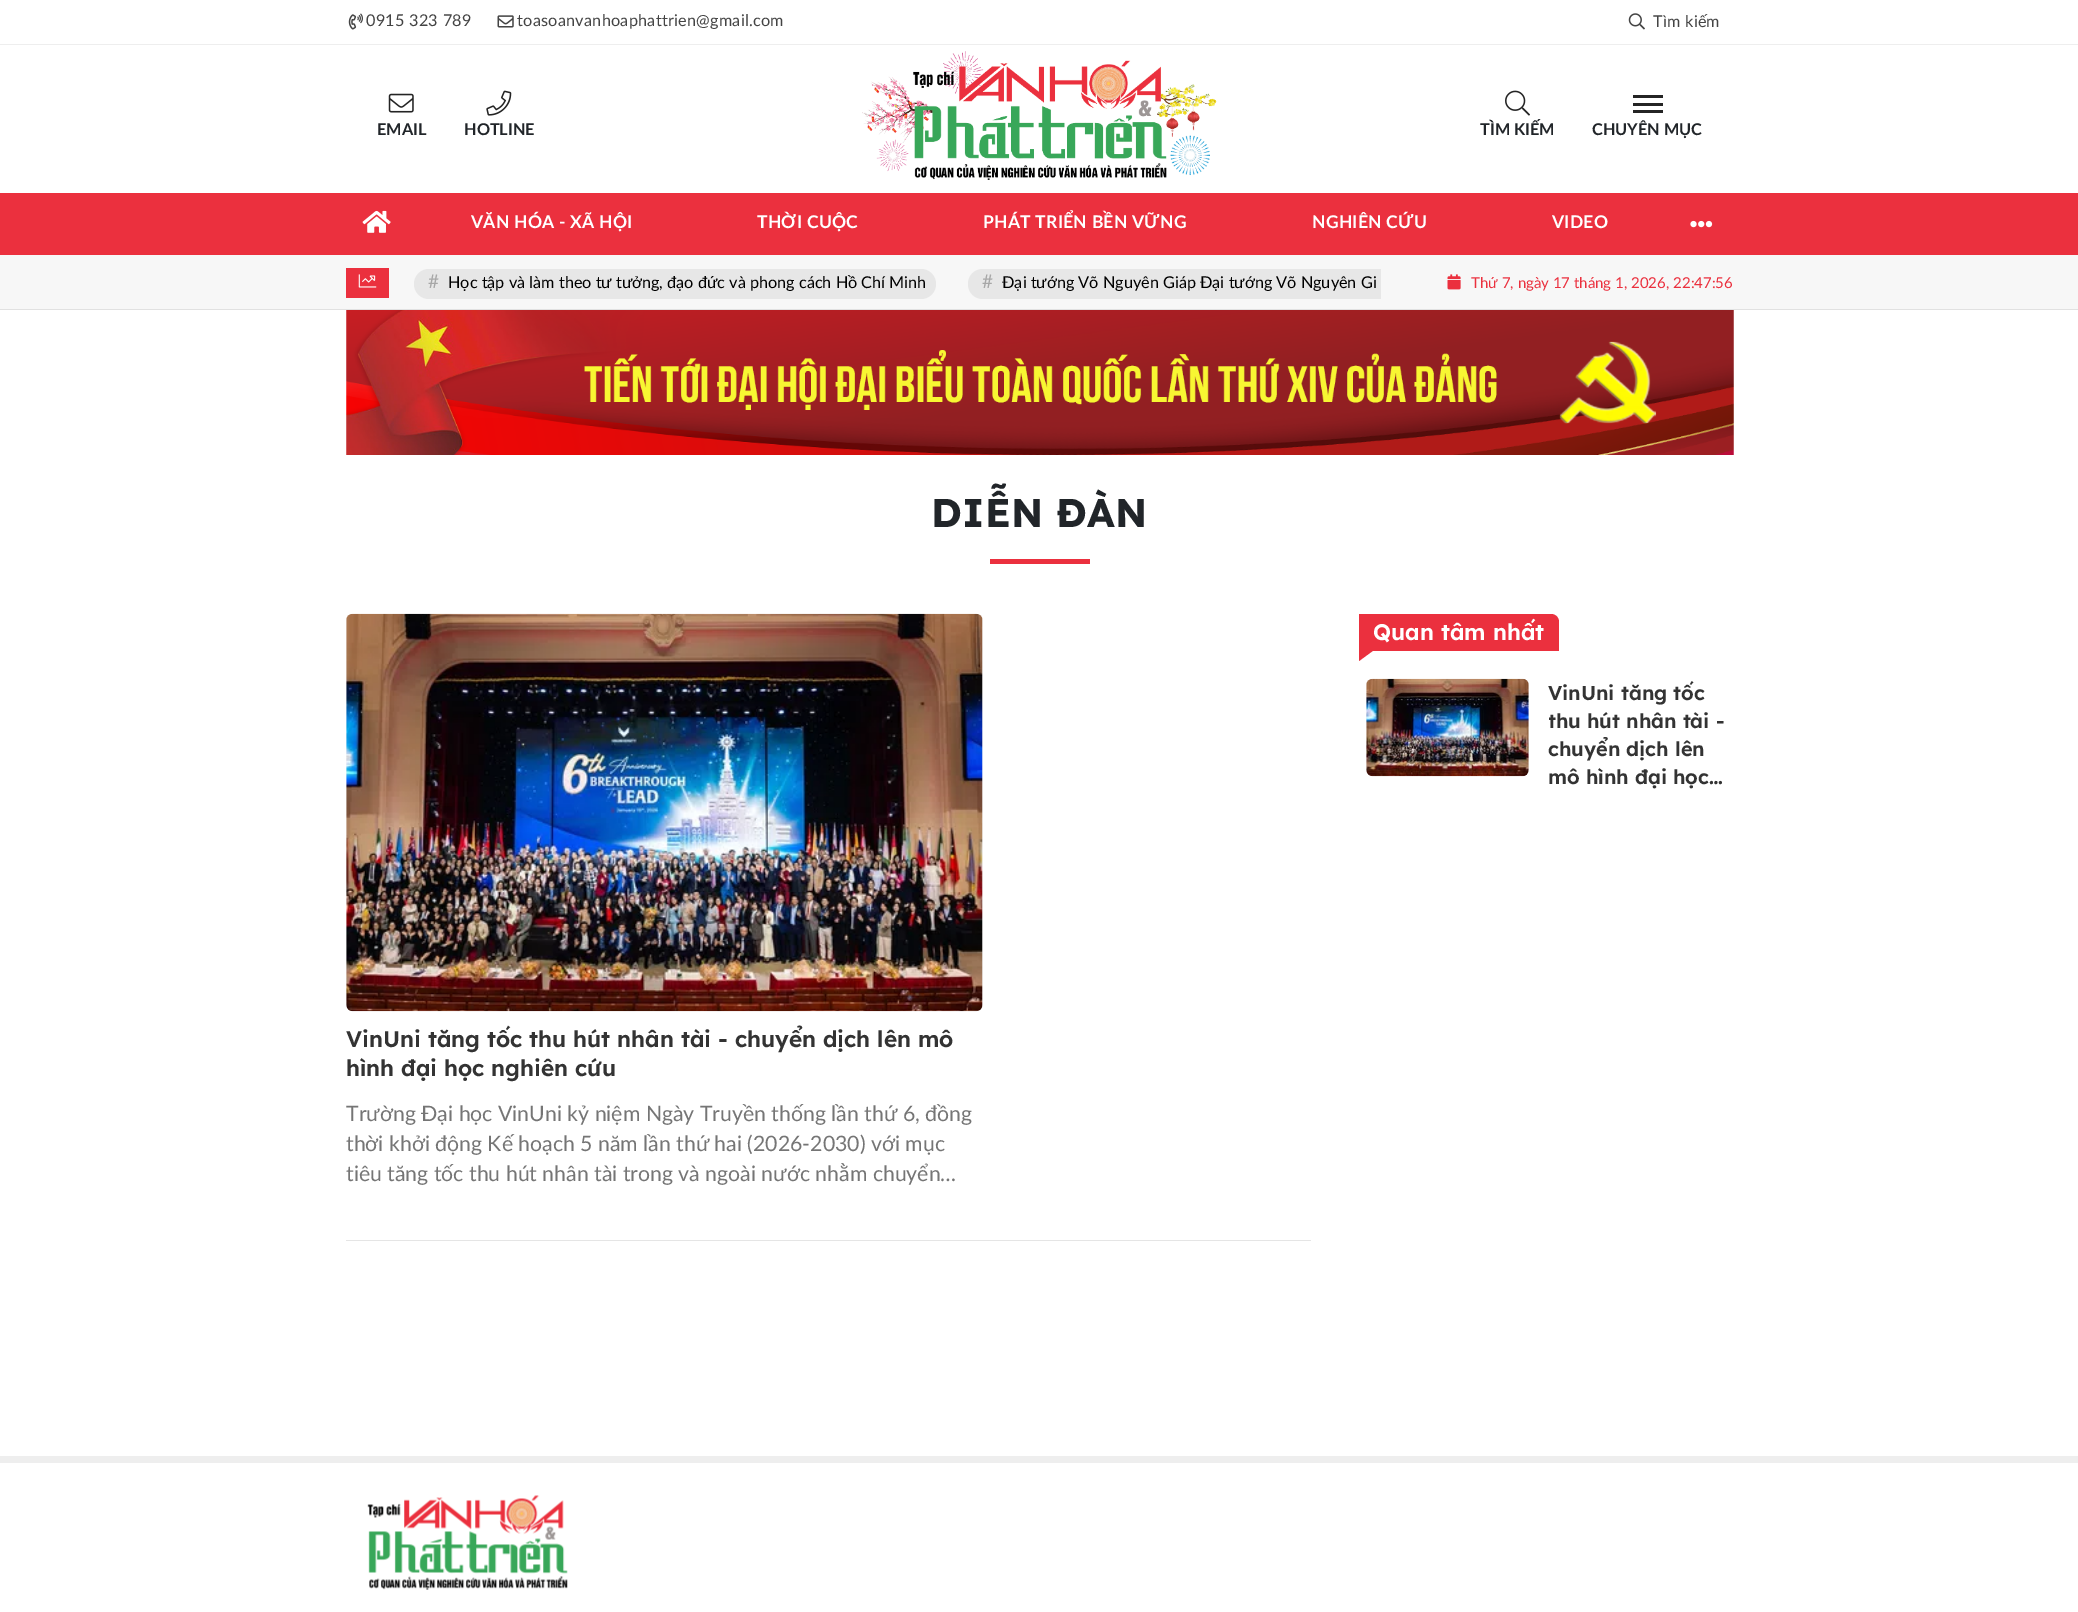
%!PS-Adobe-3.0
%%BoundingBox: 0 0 2078 1612
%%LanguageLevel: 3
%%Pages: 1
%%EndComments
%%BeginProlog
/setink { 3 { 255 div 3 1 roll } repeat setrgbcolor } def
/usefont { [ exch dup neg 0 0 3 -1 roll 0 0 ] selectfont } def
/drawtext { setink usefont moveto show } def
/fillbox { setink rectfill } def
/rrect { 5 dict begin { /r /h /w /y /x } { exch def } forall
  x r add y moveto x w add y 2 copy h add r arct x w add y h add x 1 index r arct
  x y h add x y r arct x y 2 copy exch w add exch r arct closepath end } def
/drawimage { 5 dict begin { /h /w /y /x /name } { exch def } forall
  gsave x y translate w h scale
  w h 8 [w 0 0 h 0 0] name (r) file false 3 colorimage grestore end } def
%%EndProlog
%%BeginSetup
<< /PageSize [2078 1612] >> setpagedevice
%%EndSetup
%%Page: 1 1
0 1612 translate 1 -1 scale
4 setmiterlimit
0 0 2078 1612 255 255 255 fillbox
0 44 2078 1 238 238 238 fillbox
(assets/img1.rgb) 348 13 15 17 drawimage
/Lato-Regular 16.25 usefont
68 68 68 setink
366 26 moveto 0.25 0 (0915 323 789) ashow
(assets/img2.rgb) 497 15 17 13 drawimage
517 26 moveto 0.25 0 (toasoanvanhoaphattrien@gmail.com) ashow
(assets/img3.rgb) 1628 13 17 17 drawimage
1653 27 moveto 0.25 0 (Tìm kiếm) ashow
(assets/img4.rgb) 388 93 26 20 drawimage
(EMAIL) 377 135 /Lato-Bold 16.25 33 37 41 drawtext
(assets/img5.rgb) 486 90 26 26 drawimage
(HOTLINE) 464 135 /Lato-Bold 16.25 33 37 41 drawtext
(assets/img6.rgb) 862 51 355 129 drawimage
(assets/img7.rgb) 1505 90 25 26 drawimage
(TÌM KIẾM) 1480 135 /Lato-Bold 16.25 33 37 41 drawtext
1633 103 30 3 36 36 36 fillbox
1633 95 30 3 36 36 36 fillbox
1633 110 30 3 36 36 36 fillbox
(CHUYÊN MỤC) 1592 135 /Lato-Bold 16.25 33 37 41 drawtext
0 193 2078 62 235 48 62 fillbox
(assets/img8.rgb) 362 210 29 23 drawimage
/Lato-Bold 17.5 usefont
255 255 255 setink
471 228 moveto 0.25 0 (VĂN HÓA - XÃ HỘI) ashow
757 228 moveto 0.25 0 (THỜI CUỘC) ashow
983 228 moveto 0.25 0 (PHÁT TRIỂN BỀN VỮNG) ashow
1312 228 moveto 0.25 0 (NGHIÊN CỨU) ashow
1552 228 moveto 0.25 0 (VIDEO) ashow
(assets/img9.rgb) 1690 220 23 8 drawimage
0 255 2078 54 247 247 247 fillbox
0 309 2078 1 225 225 225 fillbox
346 268 43 30 235 48 62 fillbox
(assets/img10.rgb) 358 274 19 14 drawimage
231 231 231 setink
414 269 522 30 15 rrect fill
(#) 428 288 /Lato-Regular 19 167 167 167 drawtext
(Học tập và làm theo tư tưởng, đạo đức và phong cách Hồ Chí Minh) 448 288 /Lato-Regular 16.25 0 0 0 drawtext
231 231 231 setink
983 269 moveto 1381 269 lineto 1381 299 lineto 983 299 lineto 974.5 299 968 292.5 968 284 curveto 968 275.5 974.5 269 983 269 curveto closepath fill
(#) 982 288 /Lato-Regular 19 167 167 167 drawtext
(Đại tướng Võ Nguyên Giáp Đại tướng Võ Nguyên Gi) 1002 288 /Lato-Regular 16.25 0 0 0 drawtext
(assets/img11.rgb) 1447 274 14 16 drawimage
(Thứ 7, ngày 17 tháng 1, 2026, 22:47:56) 1471 288 /Lato-Regular 15 235 48 62 drawtext
(assets/img12.rgb) 346 310 1388 145 drawimage
/LexendDeca-Bold 40 usefont
33 37 41 setink
931 527 moveto 0.25 0 (DIỄN ĐÀN) ashow
990 559 100 5 235 48 62 fillbox
1359 614 moveto 1551 614 lineto 1555.5 614 1559 617.5 1559 622 curveto 1559 651 lineto 1359 651 lineto closepath fill
(Quan tâm nhất) 1373 640 /LexendDeca-SemiBold 22.5 255 255 255 drawtext
235 48 62 setink
1359 650 moveto 1374 650 lineto 1359 661 lineto closepath fill
245 244 244 setink
1366 679 163 97 6 rrect fill
(assets/img13.rgb) 1366 678 163 99 drawimage
(VinUni tăng tốc) 1548 700 /LexendDeca-SemiBold 20 51 51 51 drawtext
gsave
1549 679 177 111 rectclip
(thu hút nhân tài -) 1548 728 /LexendDeca-SemiBold 20 51 51 51 drawtext
grestore
(chuyển dịch lên) 1548 756 /LexendDeca-SemiBold 20 51 51 51 drawtext
(mô hình đại học…) 1548 784 /LexendDeca-SemiBold 20 51 51 51 drawtext
245 244 244 setink
346 614 637 397 6 rrect fill
(assets/img14.rgb) 346 613 637 399 drawimage
(VinUni tăng tốc thu hút nhân tài - chuyển dịch lên mô) 346 1047 /LexendDeca-SemiBold 22.5 51 51 51 drawtext
(hình đại học nghiên cứu) 346 1076 /LexendDeca-SemiBold 22.5 51 51 51 drawtext
(Trường Đại học VinUni kỷ niệm Ngày Truyền thống lần thứ 6, đồng) 346 1121 /Lato-Regular 21.25 117 117 117 drawtext
(thời khởi động Kế hoạch 5 năm lần thứ hai \(2026-2030\) với mục) 346 1151 /Lato-Regular 21.25 117 117 117 drawtext
(tiêu tăng tốc thu hút nhân tài trong và ngoài nước nhằm chuyển…) 346 1181 /Lato-Regular 21.25 117 117 117 drawtext
346 1240 965 1 229 229 229 fillbox
0 1456 2078 7 238 238 238 fillbox
(assets/img15.rgb) 367 1495 201 95 drawimage
showpage
%%EOF
